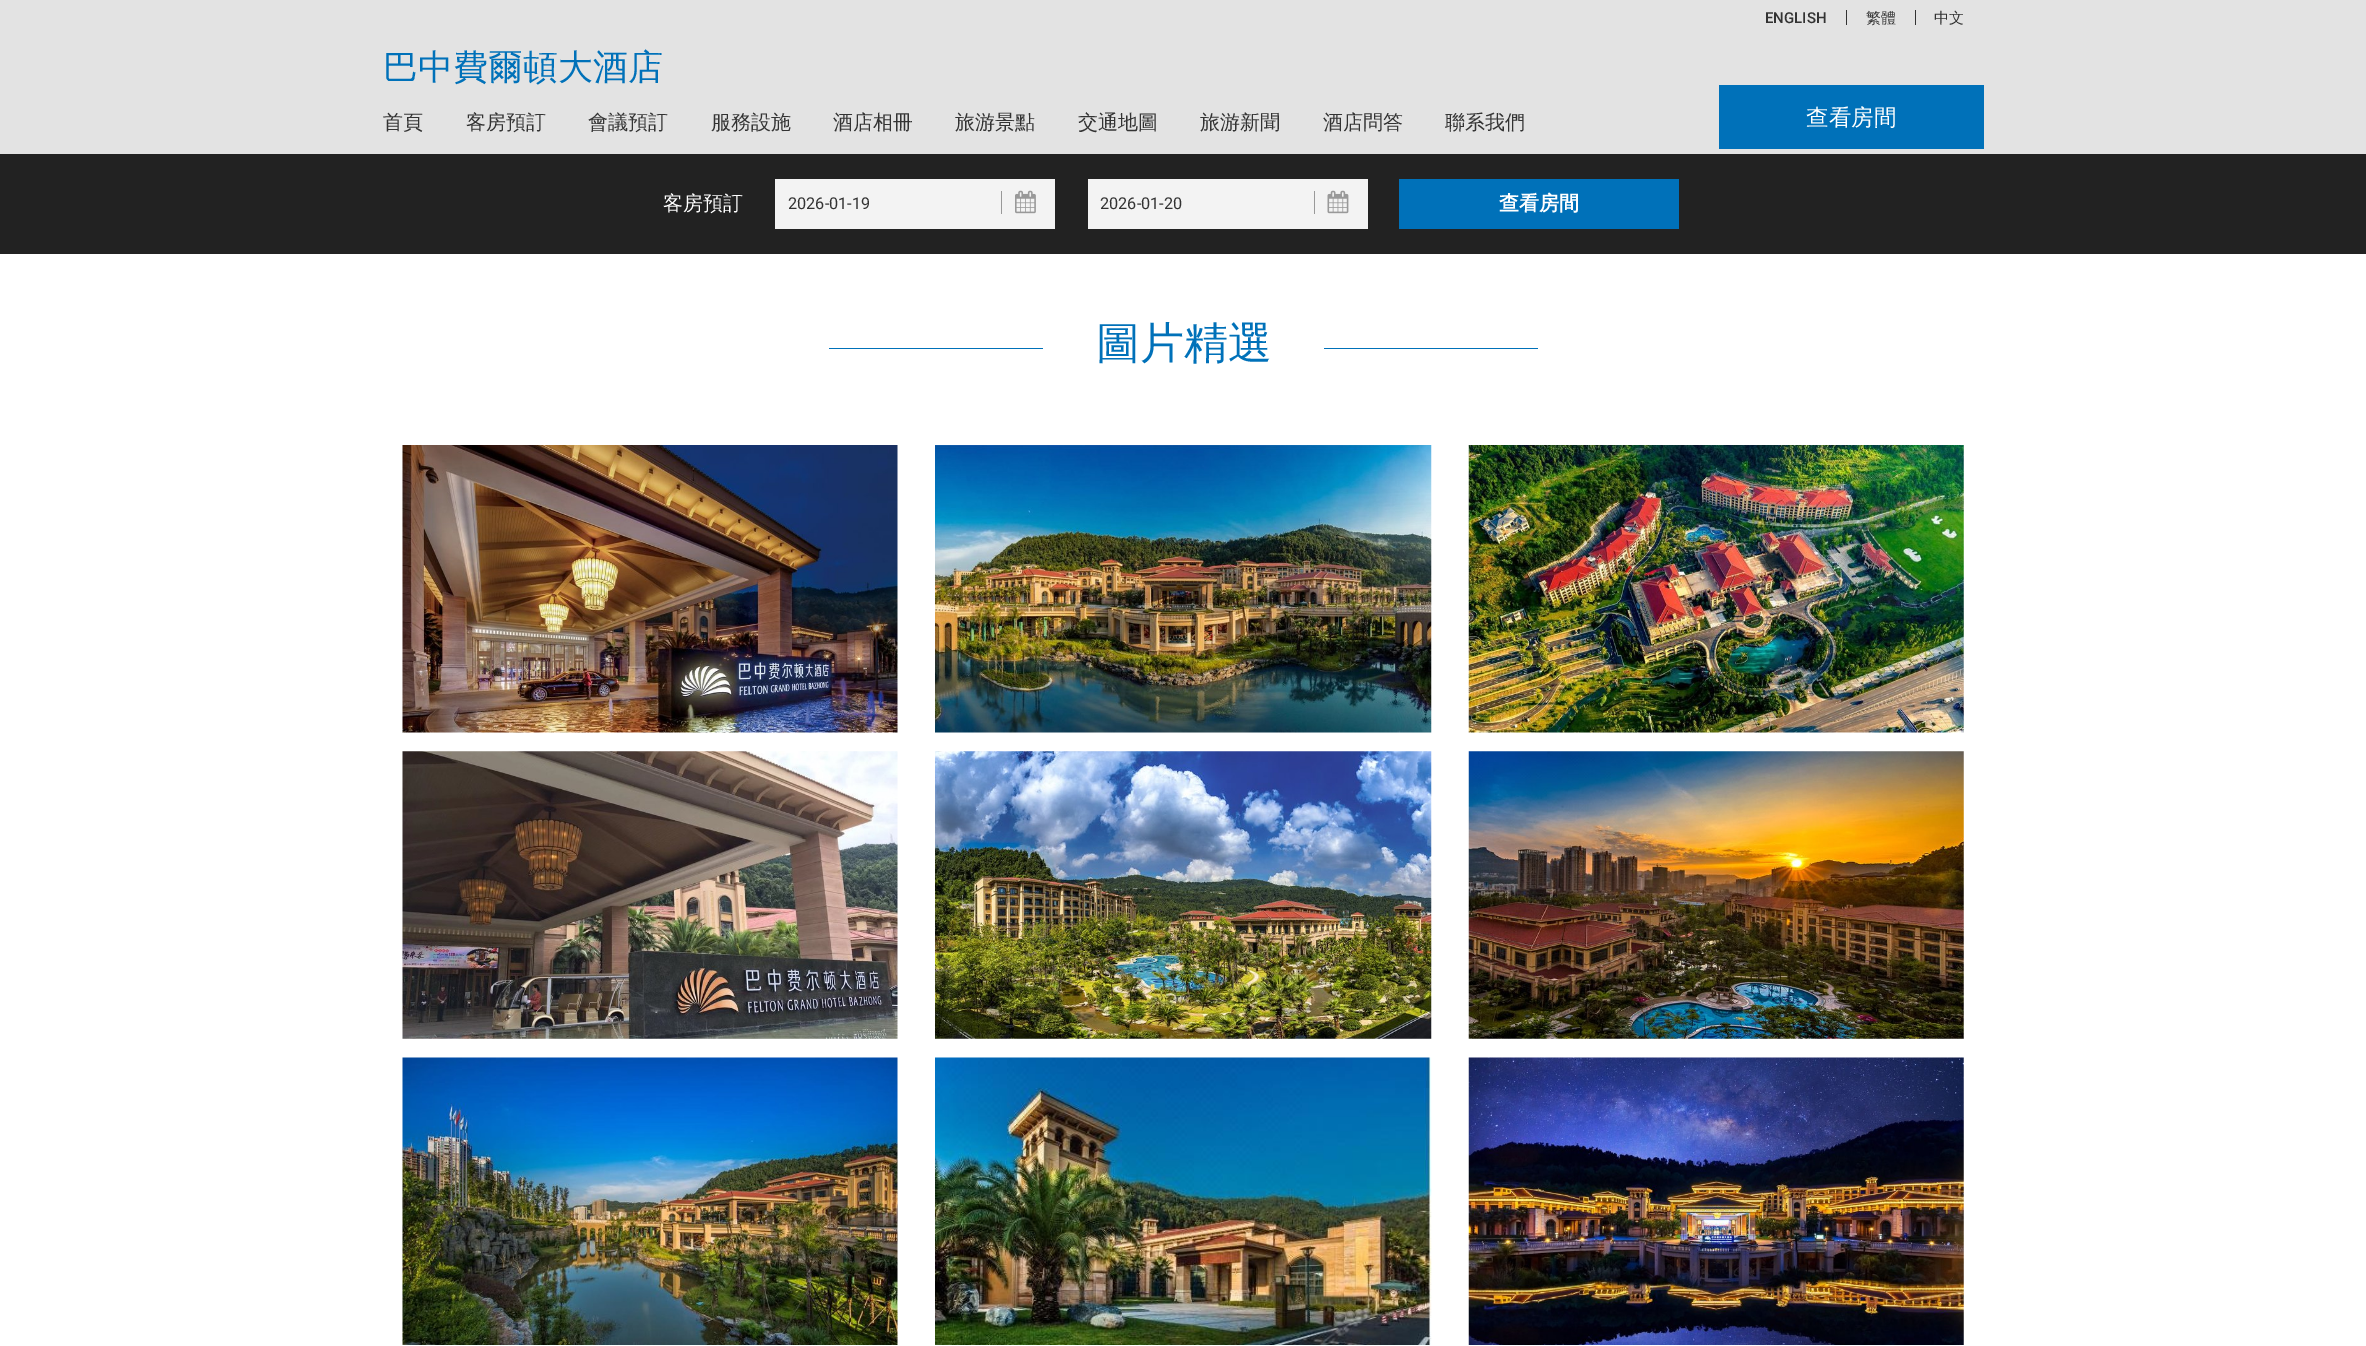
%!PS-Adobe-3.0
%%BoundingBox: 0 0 2366 1346
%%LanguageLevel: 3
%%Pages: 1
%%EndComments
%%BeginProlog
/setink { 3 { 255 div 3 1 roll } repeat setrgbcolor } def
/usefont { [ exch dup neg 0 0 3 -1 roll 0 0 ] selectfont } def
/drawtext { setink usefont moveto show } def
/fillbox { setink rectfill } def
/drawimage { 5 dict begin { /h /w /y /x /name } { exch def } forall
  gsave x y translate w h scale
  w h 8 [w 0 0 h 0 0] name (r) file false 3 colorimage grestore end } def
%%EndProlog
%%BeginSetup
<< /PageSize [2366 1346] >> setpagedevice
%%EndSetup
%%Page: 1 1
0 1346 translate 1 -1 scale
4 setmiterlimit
0 0 2366 1346 255 255 255 fillbox
0 0 2366 154 227 227 227 fillbox
1846 10 1 15 51 51 51 fillbox
(ENGLISH) 1765 23 /Roboto-Medium 15 51 51 51 drawtext
1915 10 1 15 51 51 51 fillbox
(繁體) 1866 23 /WenQuanYiZenHei-Medium 15 51 51 51 drawtext
(中文) 1934 23 /WenQuanYiZenHei-Medium 15 51 51 51 drawtext
(巴中費爾頓大酒店) 383 79 /WenQuanYiZenHei-Medium 35 0 113 185 drawtext
(首頁) 383 129 /WenQuanYiZenHei-Medium 20 51 51 51 drawtext
(客房預訂) 466 129 /WenQuanYiZenHei-Medium 20 51 51 51 drawtext
(會議預訂) 588 129 /WenQuanYiZenHei-Medium 20 51 51 51 drawtext
(服務設施) 711 129 /WenQuanYiZenHei-Medium 20 51 51 51 drawtext
(酒店相冊) 833 129 /WenQuanYiZenHei-Medium 20 51 51 51 drawtext
(旅游景點) 955 129 /WenQuanYiZenHei-Medium 20 51 51 51 drawtext
(交通地圖) 1078 129 /WenQuanYiZenHei-Medium 20 51 51 51 drawtext
(旅游新聞) 1200 129 /WenQuanYiZenHei-Medium 20 51 51 51 drawtext
(酒店問答) 1323 129 /WenQuanYiZenHei-Medium 20 51 51 51 drawtext
(聯系我們) 1445 129 /WenQuanYiZenHei-Medium 20 51 51 51 drawtext
1719 85 265 64 0 113 185 fillbox
(查看房間) 1806 125 /WenQuanYiZenHei-Medium 22.5 255 255 255 drawtext
0 154 2366 100 34 34 34 fillbox
(客房預訂) 663 210 /WenQuanYiZenHei-Medium 20 255 255 255 drawtext
775 179 280 50 243 243 243 fillbox
(2026-01-19) 788 209 /Roboto-Regular 16.25 51 51 51 drawtext
1001 191 1 23 153 153 153 fillbox
(assets/img1.rgb) 1015 190 21 24 drawimage
1088 179 280 50 243 243 243 fillbox
(2026-01-20) 1100 209 /Roboto-Regular 16.25 51 51 51 drawtext
1314 191 1 23 153 153 153 fillbox
(assets/img2.rgb) 1327 190 22 24 drawimage
1399 179 280 50 0 113 185 fillbox
(查看房間) 1499 210 /WenQuanYiZenHei-Bold 20 255 255 255 drawtext
829 348 709 1 0 113 185 fillbox
1043 348 281 1 255 255 255 fillbox
(圖片精選) 1096 358 /WenQuanYiZenHei-Medium 44 0 113 185 drawtext
(assets/img3.rgb) 402 445 496 288 drawimage
(assets/img4.rgb) 935 445 497 288 drawimage
(assets/img5.rgb) 1468 445 496 288 drawimage
(assets/img6.rgb) 402 751 496 288 drawimage
(assets/img7.rgb) 935 751 497 288 drawimage
(assets/img8.rgb) 1468 751 496 288 drawimage
(assets/img9.rgb) 402 1057 496 288 drawimage
(assets/img10.rgb) 935 1057 497 288 drawimage
(assets/img11.rgb) 1468 1057 496 288 drawimage
showpage
%%EOF
